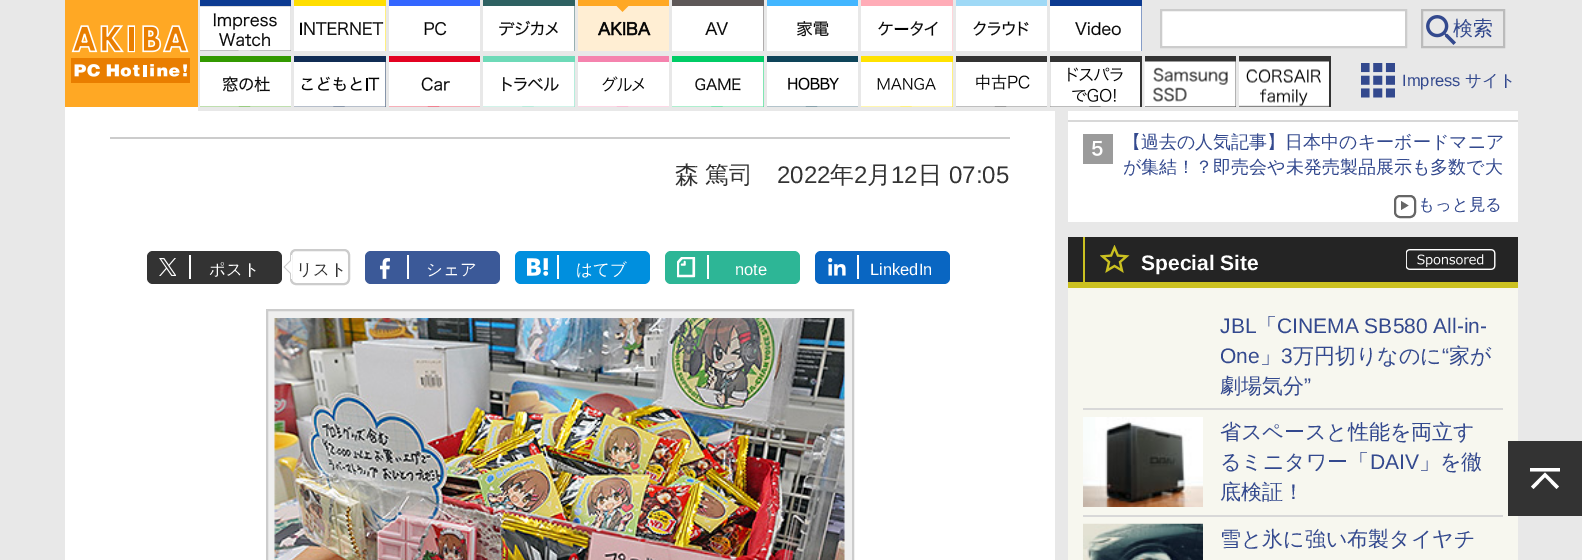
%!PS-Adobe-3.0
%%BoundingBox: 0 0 1582 560
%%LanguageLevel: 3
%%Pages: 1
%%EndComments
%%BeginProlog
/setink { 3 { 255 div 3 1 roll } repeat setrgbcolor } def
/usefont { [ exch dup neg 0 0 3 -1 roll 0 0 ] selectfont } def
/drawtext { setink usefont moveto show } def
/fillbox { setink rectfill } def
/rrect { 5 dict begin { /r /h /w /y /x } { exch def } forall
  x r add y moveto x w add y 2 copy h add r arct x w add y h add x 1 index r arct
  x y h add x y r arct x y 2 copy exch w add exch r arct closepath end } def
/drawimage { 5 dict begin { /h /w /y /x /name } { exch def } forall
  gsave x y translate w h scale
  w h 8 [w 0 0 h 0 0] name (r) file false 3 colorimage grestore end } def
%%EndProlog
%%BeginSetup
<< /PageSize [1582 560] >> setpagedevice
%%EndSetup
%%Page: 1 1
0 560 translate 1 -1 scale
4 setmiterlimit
0 0 1582 560 232 232 232 fillbox
65 0 133 107 255 168 36 fillbox
(assets/img1.rgb) 71 25 119 58 drawimage
65 107 990 453 255 255 255 fillbox
198 107 857 4 232 232 232 fillbox
200 0 91 6 13 59 145 fillbox
(assets/img2.rgb) 200 6 91 45 drawimage
294 0 92 51 255 222 0 fillbox
(assets/img3.rgb) 294 6 92 45 drawimage
389 0 91 6 51 102 255 fillbox
(assets/img4.rgb) 389 6 91 45 drawimage
483 0 92 51 46 97 98 fillbox
(assets/img5.rgb) 483 6 92 45 drawimage
578 0 91 51 255 168 36 fillbox
(assets/img6.rgb) 578 6 91 45 drawimage
672 0 92 51 94 88 88 fillbox
(assets/img7.rgb) 672 6 92 45 drawimage
767 0 91 6 66 182 255 fillbox
(assets/img8.rgb) 767 6 91 45 drawimage
861 0 92 51 255 172 183 fillbox
(assets/img9.rgb) 861 6 92 45 drawimage
956 0 91 6 159 217 246 fillbox
(assets/img10.rgb) 956 6 91 45 drawimage
1050 0 92 51 13 59 145 fillbox
(assets/img11.rgb) 1050 6 92 45 drawimage
255 255 255 setink
1161 10 moveto 1406 10 lineto 1406 47 lineto 1161 47 lineto closepath gsave fill grestore
204 204 204 setink
2 setlinewidth
stroke
(assets/img12.rgb) 1426 15 30 30 drawimage
187 187 187 setink
1422 10 82 37 rectstroke
(検索) 1453 35 /WenQuanYiZenHei-Medium 20 51 73 142 drawtext
200 56 91 51 51 153 0 fillbox
(assets/img13.rgb) 200 62 91 45 drawimage
294 56 92 51 16 44 84 fillbox
(assets/img14.rgb) 294 62 92 45 drawimage
389 56 91 51 227 1 33 fillbox
(assets/img15.rgb) 389 62 91 45 drawimage
483 56 92 51 110 218 184 fillbox
(assets/img16.rgb) 483 62 92 45 drawimage
578 56 91 51 245 131 174 fillbox
(assets/img17.rgb) 578 62 91 45 drawimage
672 56 92 51 0 204 102 fillbox
(assets/img18.rgb) 672 62 92 45 drawimage
767 56 91 51 14 68 89 fillbox
(assets/img19.rgb) 767 62 91 45 drawimage
861 56 92 51 255 226 0 fillbox
(assets/img20.rgb) 861 62 92 45 drawimage
956 56 91 51 51 51 51 fillbox
(assets/img21.rgb) 956 62 91 45 drawimage
1050 56 92 51 51 51 51 fillbox
(assets/img22.rgb) 1050 62 90 45 drawimage
1145 56 91 51 51 51 51 fillbox
(assets/img23.rgb) 1144 61 92 46 drawimage
1239 56 92 51 51 51 51 fillbox
(assets/img24.rgb) 1239 61 90 46 drawimage
(assets/img25.rgb) 1361 63 34 35 drawimage
(Impress) 1402 86 /LiberationSans-Regular 16.5 51 73 142 drawtext
(サイト) 1465 86 /WenQuanYiZenHei-Medium 16.5 51 73 142 drawtext
110 137 900 2 204 204 204 fillbox
/WenQuanYiZenHei-Medium 24 usefont
51 51 51 setink
675 183 moveto -1 0 32 (森 篤司) widthshow
(2022) 777 183 /LiberationSans-Regular 24 51 51 51 drawtext
(年) 830 183 /WenQuanYiZenHei-Medium 24 51 51 51 drawtext
(2) 854 183 /LiberationSans-Regular 24 51 51 51 drawtext
(月) 867 183 /WenQuanYiZenHei-Medium 24 51 51 51 drawtext
(12) 891 183 /LiberationSans-Regular 24 51 51 51 drawtext
(日) 918 183 /WenQuanYiZenHei-Medium 24 51 51 51 drawtext
(07:05) 949 183 /LiberationSans-Regular 24 51 51 51 drawtext
147 251 135 33 6 rrect fill
(assets/img26.rgb) 159 258 17 18 drawimage
189 255 2 24 255 255 255 fillbox
(ポスト) 209 275 /WenQuanYiZenHei-Medium 16.5 255 255 255 drawtext
204 204 204 setink
291 250 58 34 5 rrect stroke
291 259.5 moveto 291 274.5 lineto 283.5 267 lineto closepath fill
291 255 1 24 255 255 255 fillbox
292.5 259.5 moveto 292.5 274.5 lineto 285 267 lineto closepath fill
(リスト) 296 275 /WenQuanYiZenHei-Medium 16.5 51 51 51 drawtext
59 89 152 setink
365 251 135 33 6 rrect fill
(assets/img27.rgb) 380 258 10 21 drawimage
407 255 2 24 255 255 255 fillbox
(シェア) 426 275 /WenQuanYiZenHei-Medium 16.5 255 255 255 drawtext
0 143 222 setink
515 251 135 33 6 rrect fill
(assets/img28.rgb) 527 258 22 18 drawimage
557 255 2 24 255 255 255 fillbox
(はてブ) 576 275 /WenQuanYiZenHei-Medium 16.5 255 255 255 drawtext
45 182 150 setink
665 251 135 33 6 rrect fill
(assets/img29.rgb) 677 257 19 21 drawimage
707 255 2 24 255 255 255 fillbox
(note) 735 275 /LiberationSans-Regular 16.5 255 255 255 drawtext
9 102 194 setink
815 251 135 33 6 rrect fill
(assets/img30.rgb) 828 258 18 18 drawimage
857 255 2 24 255 255 255 fillbox
(LinkedIn) 870 275 /LiberationSans-Regular 16.5 255 255 255 drawtext
239 239 239 setink
267 310 moveto 853 310 lineto 853 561 lineto 267 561 lineto closepath gsave fill grestore
204 204 204 setink
stroke
(assets/img31.rgb) 274 318 571 242 drawimage
1068 111 450 111 255 255 255 fillbox
1068 120 450 2 216 216 216 fillbox
(assets/img32.rgb) 1083 134 30 30 drawimage
(【過去の人気記事】日本中のキーボードマニア) 1123 148 /WenQuanYiZenHei-Medium 18 51 73 142 drawtext
gsave
1124 129 387 51 rectclip
(が集結！？即売会や未発売製品展示も多数で大) 1123 173 /WenQuanYiZenHei-Medium 18 51 73 142 drawtext
grestore
102 102 102 setink
1395 196 20 21 5 rrect stroke
(もっと見る) 1418 210 /WenQuanYiZenHei-Medium 16.5 51 73 142 drawtext
102 102 102 setink
1401 210 moveto 1401 201 lineto 1408.5 205.5 lineto closepath fill
1068 288 450 272 247 247 239 fillbox
1068 237 450 45 36 36 36 fillbox
1068 282 450 6 203 193 33 fillbox
1083 237 2 51 203 193 33 fillbox
(assets/img33.rgb) 1100 245 30 28 drawimage
(Special Site) 1141 270 /LiberationSans-Bold 21 255 255 255 drawtext
(assets/img34.rgb) 1406 249 90 21 drawimage
1083 408 420 2 216 216 216 fillbox
(JBL) 1220 333 /LiberationSans-Regular 21 51 73 142 drawtext
(「) 1256 333 /WenQuanYiZenHei-Medium 21 51 73 142 drawtext
(CINEMA SB580 All-in-) 1277 333 /LiberationSans-Regular 21 51 73 142 drawtext
(One) 1220 363 /LiberationSans-Regular 21 51 73 142 drawtext
(3) 1281 363 /LiberationSans-Regular 21 51 73 142 drawtext
(万円切りなのに) 1293 363 /WenQuanYiZenHei-Medium 21 51 73 142 drawtext
(“) 1442 363 /LiberationSans-Regular 21 51 73 142 drawtext
(家が) 1449 363 /WenQuanYiZenHei-Medium 21 51 73 142 drawtext
(」) 1260 363 /WenQuanYiZenHei-Medium 21 51 73 142 drawtext
(劇場気分) 1220 393 /WenQuanYiZenHei-Medium 21 51 73 142 drawtext
(”) 1304 393 /LiberationSans-Regular 21 51 73 142 drawtext
1083 515 420 2 216 216 216 fillbox
(assets/img35.rgb) 1083 417 120 90 drawimage
(省スペースと性能を両立す) 1220 439 /WenQuanYiZenHei-Medium 21 51 73 142 drawtext
(るミニタワー「) 1220 469 /WenQuanYiZenHei-Medium 21 51 73 142 drawtext
(DAIV) 1370 469 /LiberationSans-Regular 21 51 73 142 drawtext
(」を徹) 1419 469 /WenQuanYiZenHei-Medium 21 51 73 142 drawtext
(底検証！) 1220 499 /WenQuanYiZenHei-Medium 21 51 73 142 drawtext
(assets/img36.rgb) 1083 523 120 37 drawimage
(雪と氷に強い布製タイヤチ) 1220 546 /WenQuanYiZenHei-Medium 21 51 73 142 drawtext
1508 441 74 75 51 51 51 fillbox
255 255 255 setink
1530 471.5 moveto 1560 471.5 lineto 1560 468 lineto 1530 468 lineto closepath 1531 486.5 moveto 1533.5 489 lineto 1545 477 lineto 1556.5 489 lineto 1559 486.5 lineto 1545 472.5 lineto closepath eofill
showpage
%%EOF
